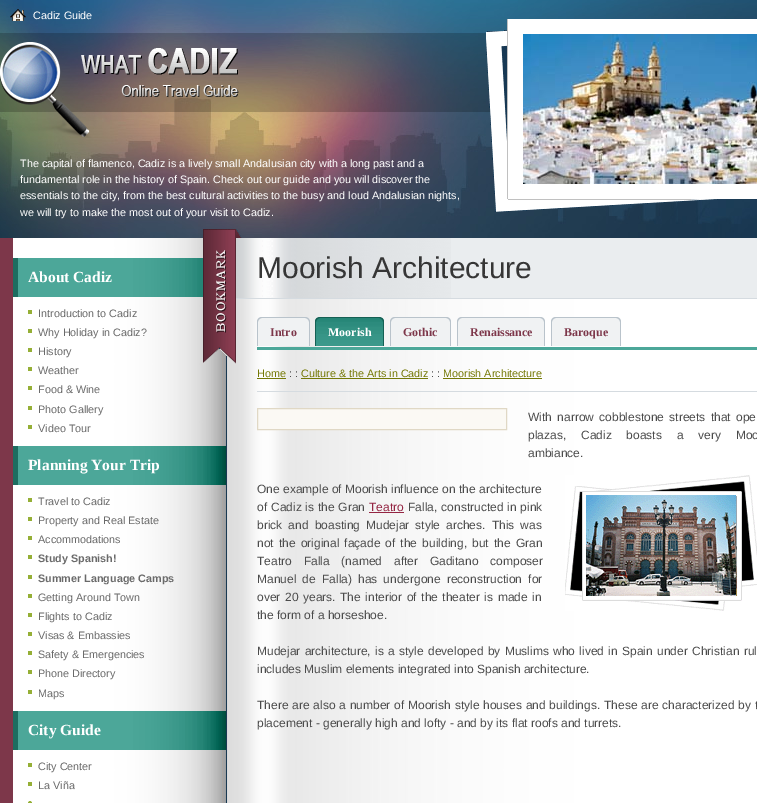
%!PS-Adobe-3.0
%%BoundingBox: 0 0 757 803
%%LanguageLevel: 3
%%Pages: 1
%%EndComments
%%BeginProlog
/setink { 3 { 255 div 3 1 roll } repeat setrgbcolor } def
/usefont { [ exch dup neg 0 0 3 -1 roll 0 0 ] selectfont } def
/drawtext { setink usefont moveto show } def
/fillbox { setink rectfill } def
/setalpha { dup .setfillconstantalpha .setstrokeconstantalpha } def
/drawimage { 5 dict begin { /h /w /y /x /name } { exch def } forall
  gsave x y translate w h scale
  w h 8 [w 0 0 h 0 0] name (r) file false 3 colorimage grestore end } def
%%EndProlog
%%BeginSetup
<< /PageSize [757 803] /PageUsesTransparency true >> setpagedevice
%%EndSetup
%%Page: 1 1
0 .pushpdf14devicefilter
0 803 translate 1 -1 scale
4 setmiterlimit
0 0 757 803 255 255 255 fillbox
(assets/img1.rgb) 0 0 757 238 drawimage
(assets/img2.rgb) 10 9 16 12 drawimage
(Cadiz Guide) 33 19 /LiberationSans-Regular 10.8 255 255 255 drawtext
0.2 setalpha
0 33 490 79 0 0 0 fillbox
1 setalpha
(assets/img3.rgb) 0 42 239 96 drawimage
(assets/img4.rgb) 486 19 271 193 drawimage
(assets/img5.rgb) 523 34 234 150 drawimage
(The capital of flamenco, Cadiz is a lively small Andalusian city with a long past and a) 20 167 /LiberationSans-Regular 10.8 255 255 255 drawtext
(fundamental role in the history of Spain. Check out our guide and you will discover the) 20 183 /LiberationSans-Regular 10.8 255 255 255 drawtext
(essentials to the city, from the best cultural activities to the busy and loud Andalusian nights,) 20 199 /LiberationSans-Regular 10.8 255 255 255 drawtext
(we will try to make the most out of your visit to Cadiz.) 20 216 /LiberationSans-Regular 10.8 255 255 255 drawtext
(assets/img7.rgb) 13 238 744 565 drawimage
(assets/img8.rgb) 236 238 215 60 drawimage
236 298 521 1 213 219 224 fillbox
(assets/img6.rgb) 203 229 39 135 drawimage
0 238 13 565 125 55 74 fillbox
451 238 306 60 234 237 239 fillbox
(Moorish Architecture) 257 278 /LiberationSans-Regular 30 54 54 54 drawtext
(assets/img9.rgb) 18 258 185 39 drawimage
13 258 5 39 29 109 96 fillbox
(About Cadiz) 28 282 /LiberationSerif-Bold 15.5 255 255 255 drawtext
28 310 4 4 149 175 54 fillbox
(Introduction to Cadiz) 38 317 /LiberationSans-Regular 10.8 106 106 106 drawtext
28 329 4 4 149 175 54 fillbox
(Why Holiday in Cadiz?) 38 336 /LiberationSans-Regular 10.8 106 106 106 drawtext
28 348 4 4 149 175 54 fillbox
(History) 38 355 /LiberationSans-Regular 10.8 106 106 106 drawtext
28 367 4 4 149 175 54 fillbox
(Weather) 38 374 /LiberationSans-Regular 10.8 106 106 106 drawtext
28 386 4 4 149 175 54 fillbox
(Food & Wine) 38 393 /LiberationSans-Regular 10.8 106 106 106 drawtext
28 406 4 4 149 175 54 fillbox
(Photo Gallery) 38 413 /LiberationSans-Regular 10.8 106 106 106 drawtext
28 425 4 4 149 175 54 fillbox
(Video Tour) 38 432 /LiberationSans-Regular 10.8 106 106 106 drawtext
(assets/img10.rgb) 18 446 208 39 drawimage
13 446 5 39 29 109 96 fillbox
(Planning Your Trip) 28 470 /LiberationSerif-Bold 15.5 255 255 255 drawtext
28 498 4 4 149 175 54 fillbox
(Travel to Cadiz) 38 505 /LiberationSans-Regular 10.8 106 106 106 drawtext
28 517 4 4 149 175 54 fillbox
(Property and Real Estate) 38 524 /LiberationSans-Regular 10.8 106 106 106 drawtext
28 536 4 4 149 175 54 fillbox
(Accommodations) 38 543 /LiberationSans-Regular 10.8 106 106 106 drawtext
28 555 4 4 149 175 54 fillbox
(Study Spanish!) 38 562 /LiberationSans-Bold 10.8 106 106 106 drawtext
28 575 4 4 149 175 54 fillbox
(Summer Language Camps) 38 582 /LiberationSans-Bold 10.8 106 106 106 drawtext
28 594 4 4 149 175 54 fillbox
(Getting Around Town) 38 601 /LiberationSans-Regular 10.8 106 106 106 drawtext
28 613 4 4 149 175 54 fillbox
(Flights to Cadiz) 38 620 /LiberationSans-Regular 10.8 106 106 106 drawtext
28 632 4 4 149 175 54 fillbox
(Visas & Embassies) 38 639 /LiberationSans-Regular 10.8 106 106 106 drawtext
28 651 4 4 149 175 54 fillbox
(Safety & Emergencies) 38 658 /LiberationSans-Regular 10.8 106 106 106 drawtext
28 670 4 4 149 175 54 fillbox
(Phone Directory) 38 677 /LiberationSans-Regular 10.8 106 106 106 drawtext
28 690 4 4 149 175 54 fillbox
(Maps) 38 697 /LiberationSans-Regular 10.8 106 106 106 drawtext
(assets/img10.rgb) 18 711 208 39 drawimage
13 711 5 39 29 109 96 fillbox
(City Guide) 28 735 /LiberationSerif-Bold 15.5 255 255 255 drawtext
28 763 4 4 149 175 54 fillbox
(City Center) 38 770 /LiberationSans-Regular 10.8 106 106 106 drawtext
28 782 4 4 149 175 54 fillbox
(La Viña) 38 789 /LiberationSans-Regular 10.8 106 106 106 drawtext
(assets/img11.rgb) 28 801 4 2 drawimage
257 347 500 3 76 167 153 fillbox
240 242 243 setink
262 317 moveto 305 317 lineto 308 317 310 319 310 322 curveto 310 346 lineto 257 346 lineto 257 322 lineto 257 319 259 317 262 317 curveto closepath fill
185 195 203 setink
262 317 moveto 305 317 lineto 308 317 310 319 310 322 curveto 310 346 lineto 257 346 lineto 257 322 lineto 257 319 259 317 262 317 curveto closepath 262 318 moveto 305 318 lineto 307 318 309 320 309 322 curveto 309 346 lineto 258 346 lineto 258 322 lineto 258 320 260 318 262 318 curveto closepath eofill
(Intro) 270 336 /LiberationSerif-Bold 12 125 55 74 drawtext
(assets/img12.rgb) 315 318 69 28 drawimage
21 96 84 setink
320 317 moveto 379 317 lineto 382 317 384 319 384 322 curveto 384 346 lineto 315 346 lineto 315 322 lineto 315 319 317 317 320 317 curveto closepath 320 318 moveto 379 318 lineto 381 318 383 320 383 322 curveto 383 346 lineto 316 346 lineto 316 322 lineto 316 320 318 318 320 318 curveto closepath eofill
(Moorish) 328 336 /LiberationSerif-Bold 12 255 255 255 drawtext
240 242 243 setink
395 317 moveto 446 317 lineto 449 317 451 319 451 322 curveto 451 346 lineto 390 346 lineto 390 322 lineto 390 319 392 317 395 317 curveto closepath fill
185 195 203 setink
395 317 moveto 446 317 lineto 449 317 451 319 451 322 curveto 451 346 lineto 390 346 lineto 390 322 lineto 390 319 392 317 395 317 curveto closepath 395 318 moveto 446 318 lineto 448 318 450 320 450 322 curveto 450 346 lineto 391 346 lineto 391 322 lineto 391 320 393 318 395 318 curveto closepath eofill
(Gothic) 403 336 /LiberationSerif-Bold 12 125 55 74 drawtext
240 242 243 setink
462 317 moveto 540 317 lineto 543 317 545 319 545 322 curveto 545 346 lineto 457 346 lineto 457 322 lineto 457 319 459 317 462 317 curveto closepath fill
185 195 203 setink
462 317 moveto 540 317 lineto 543 317 545 319 545 322 curveto 545 346 lineto 457 346 lineto 457 322 lineto 457 319 459 317 462 317 curveto closepath 462 318 moveto 540 318 lineto 542 318 544 320 544 322 curveto 544 346 lineto 458 346 lineto 458 322 lineto 458 320 460 318 462 318 curveto closepath eofill
(Renaissance) 470 336 /LiberationSerif-Bold 12 125 55 74 drawtext
240 242 243 setink
556 317 moveto 616 317 lineto 619 317 621 319 621 322 curveto 621 346 lineto 551 346 lineto 551 322 lineto 551 319 553 317 556 317 curveto closepath fill
185 195 203 setink
556 317 moveto 616 317 lineto 619 317 621 319 621 322 curveto 621 346 lineto 551 346 lineto 551 322 lineto 551 319 553 317 556 317 curveto closepath 556 318 moveto 616 318 lineto 618 318 620 320 620 322 curveto 620 346 lineto 552 346 lineto 552 322 lineto 552 320 554 318 556 318 curveto closepath eofill
(Baroque) 564 336 /LiberationSerif-Bold 12 125 55 74 drawtext
257 391 500 1 213 219 224 fillbox
(Home) 257 377 /LiberationSans-Regular 10.8 117 121 6 drawtext
257 378 29 1 117 121 6 fillbox
(: :) 289 377 /LiberationSans-Regular 10.8 75 75 75 drawtext
(Culture & the Arts in Cadiz) 301 377 /LiberationSans-Regular 10.8 117 121 6 drawtext
301 378 127 1 117 121 6 fillbox
(: :) 431 377 /LiberationSans-Regular 10.8 75 75 75 drawtext
(Moorish Architecture) 443 377 /LiberationSans-Regular 10.8 117 121 6 drawtext
443 378 99 1 117 121 6 fillbox
251 249 244 setink
257.5 408.5 moveto 506.5 408.5 lineto 506.5 429.5 lineto 257.5 429.5 lineto closepath gsave fill grestore
224 216 197 setink
stroke
/LiberationSans-Regular 12 usefont
75 75 75 setink
528 421 moveto 2 0 32 (With narrow cobblestone streets that ope) widthshow
528 439 moveto 11.5 0 32 (plazas, Cadiz boasts a very Moo) widthshow
(ambiance.) 528 457 /LiberationSans-Regular 12 75 75 75 drawtext
(assets/img13.rgb) 565 475 192 136 drawimage
(One example of Moorish influence on the architecture) 257 493 /LiberationSans-Regular 12 75 75 75 drawtext
257 511 moveto 0.5 0 32 (of Cadiz is the Gran) widthshow
(Teatro) 369 511 /LiberationSans-Regular 12 148 37 67 drawtext
369 512 35 1 148 37 67 fillbox
75 75 75 setink
408 511 moveto 0.5 0 32 (Falla, constructed in pink) widthshow
257 529 moveto 2.75 0 32 (brick and boasting Mudejar style arches. This was) widthshow
257 547 moveto 1.75 0 32 (not the original façade of the building, but the Gran) widthshow
257 565 moveto 8.5 0 32 (Teatro Falla \(named after Gaditano composer) widthshow
257 583 moveto 2.75 0 32 (Manuel de Falla\) has undergone reconstruction for) widthshow
257 601 moveto 1.25 0 32 (over 20 years. The interior of the theater is made in) widthshow
(the form of a horseshoe.) 257 619 /LiberationSans-Regular 12 75 75 75 drawtext
257 655 moveto 1 0 32 (Mudejar architecture, is a style developed by Muslims who lived in Spain under Christian rul) widthshow
(includes Muslim elements integrated into Spanish architecture.) 257 673 /LiberationSans-Regular 12 75 75 75 drawtext
257 709 moveto 0.5 0 32 (There are also a number of Moorish style houses and buildings. These are characterized by t) widthshow
(placement - generally high and lofty - and by its flat roofs and turrets.) 257 727 /LiberationSans-Regular 12 75 75 75 drawtext
.poppdf14devicefilter showpage
%%EOF
